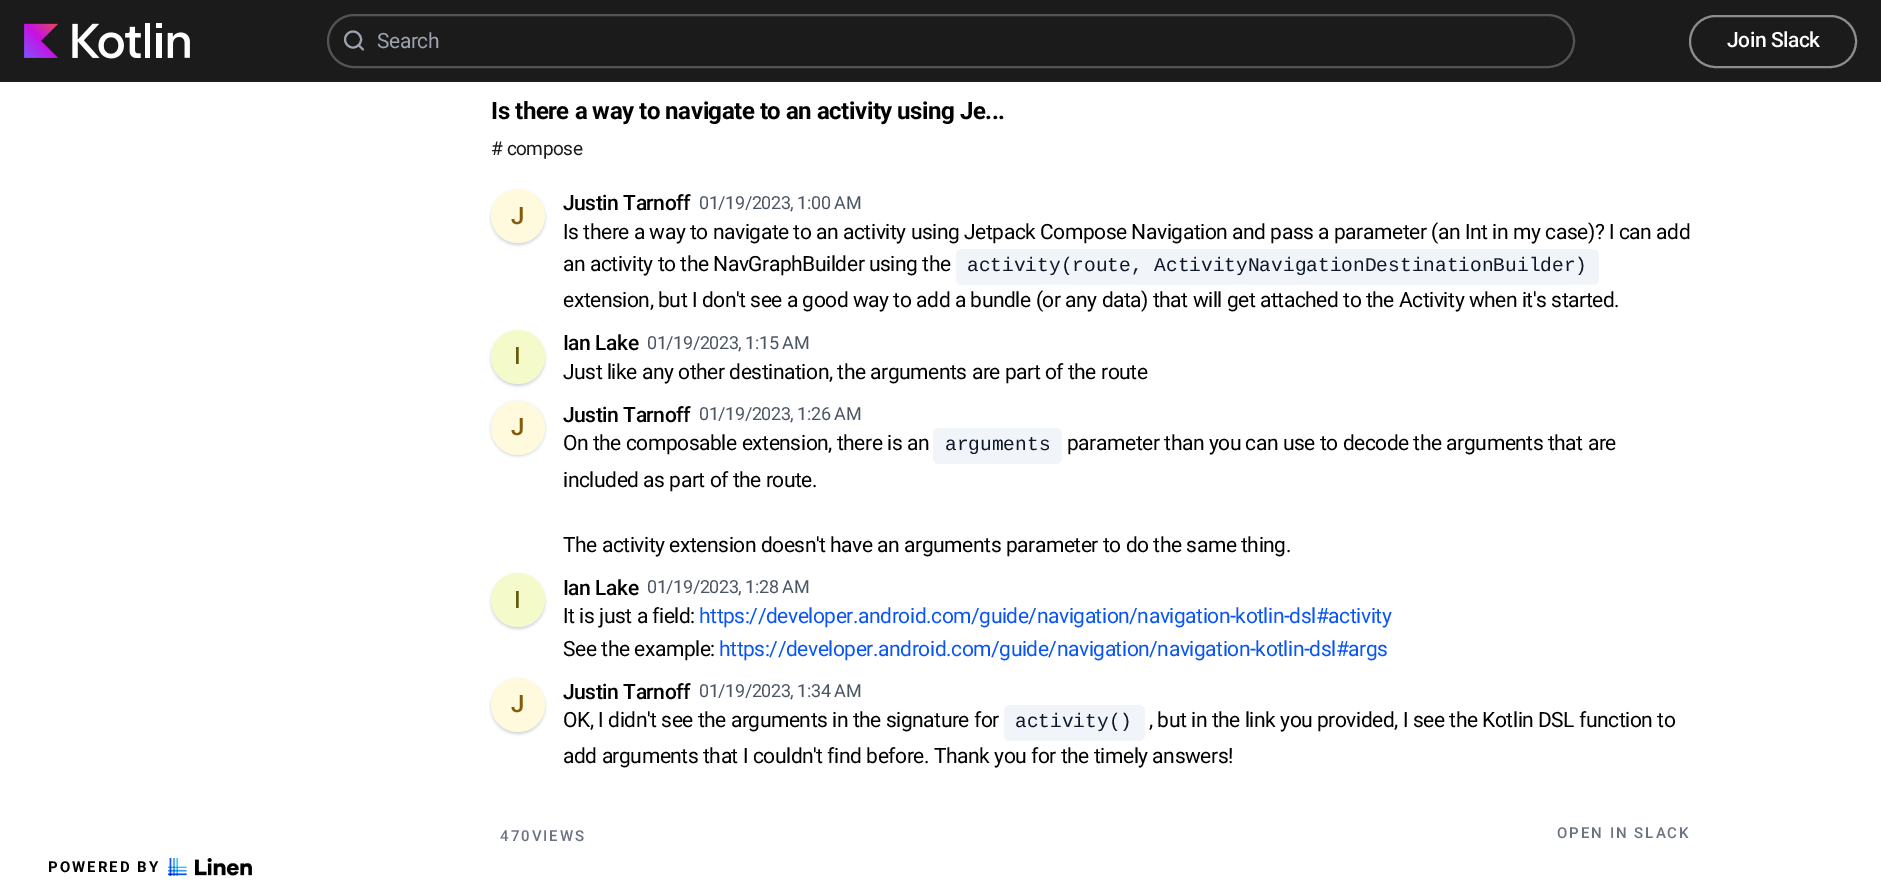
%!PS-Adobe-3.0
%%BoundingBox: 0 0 1881 891
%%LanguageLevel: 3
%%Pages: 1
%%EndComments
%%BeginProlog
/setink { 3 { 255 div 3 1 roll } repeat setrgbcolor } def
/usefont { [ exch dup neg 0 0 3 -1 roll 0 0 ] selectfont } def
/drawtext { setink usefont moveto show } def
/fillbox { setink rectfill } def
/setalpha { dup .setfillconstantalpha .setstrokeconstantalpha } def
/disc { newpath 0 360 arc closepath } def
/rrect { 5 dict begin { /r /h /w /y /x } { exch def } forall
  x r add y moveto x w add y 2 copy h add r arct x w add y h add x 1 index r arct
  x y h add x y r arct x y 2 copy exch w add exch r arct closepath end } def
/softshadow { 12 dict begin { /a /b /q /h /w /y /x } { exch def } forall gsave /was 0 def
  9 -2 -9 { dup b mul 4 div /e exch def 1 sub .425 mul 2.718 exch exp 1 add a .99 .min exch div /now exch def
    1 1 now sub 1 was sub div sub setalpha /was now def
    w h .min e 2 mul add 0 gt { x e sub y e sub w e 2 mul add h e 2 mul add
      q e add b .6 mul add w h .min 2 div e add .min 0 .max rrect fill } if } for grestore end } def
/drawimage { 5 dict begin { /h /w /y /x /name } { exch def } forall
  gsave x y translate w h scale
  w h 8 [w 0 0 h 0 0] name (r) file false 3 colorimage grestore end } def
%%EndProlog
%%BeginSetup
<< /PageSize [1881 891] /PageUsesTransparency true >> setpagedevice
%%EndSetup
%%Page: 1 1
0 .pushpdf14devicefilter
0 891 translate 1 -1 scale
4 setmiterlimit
0 0 1881 891 255 255 255 fillbox
0 0 1881 82 27 27 27 fillbox
(assets/img1.rgb) 24 23 166 36 drawimage
84 84 84 setink
2 setlinewidth
328 15 1246 52 26 rrect stroke
156 163 175 setink
353 39.5 8 disc stroke
1 setlinecap
1 setlinejoin
363 49.5 moveto 358.5 45 lineto stroke
/Roboto-Regular 21 usefont
377 48 moveto -0.45 0 (Search) ashow
141 141 141 setink
0 setlinecap
0 setlinejoin
1690 16 166 51 25.5 rrect stroke
/Roboto-Medium 21 usefont
255 255 255 setink
1727 47 moveto -0.45 0 (Join Slack) ashow
/Roboto-Bold 24 usefont
0 0 0 setink
491 119 moveto -0.45 0 (Is there a way to navigate to an activity using Je...) ashow
/Roboto-Regular 19 usefont
26 26 26 setink
491 155 moveto -0.45 0 (# compose) ashow
209 213 219 setink
491 191 54 54 27 1.5 1 softshadow
255 249 222 setink
518 216 27 disc fill
/Roboto-Medium 24 usefont
132 92 7 setink
511 224 moveto -0.45 0 (J) ashow
/Roboto-Medium 21 usefont
0 0 0 setink
563 210 moveto -0.45 0 (Justin Tarnoff) ashow
/Roboto-Regular 18 usefont
75 85 99 setink
699 209 moveto -0.45 0 (01/19/2023, 1:00 AM) ashow
/Roboto-Regular 21 usefont
0 0 0 setink
563 239 moveto -0.45 0 (Is there a way to navigate to an activity using Jetpack Compose Navigation and pass a parameter \(an Int in my case\)? I can add) ashow
563 271 moveto -0.45 0 (an activity to the NavGraphBuilder using the) ashow
241 245 249 setink
956 249 643 36 6 rrect fill
(activity\(route, ActivityNavigationDestinationBuilder\)) 967 271 /LiberationMono-Regular 19.5 15 23 42 drawtext
/Roboto-Regular 21 usefont
0 0 0 setink
563 307 moveto -0.45 0 (extension, but I don't see a good way to add a bundle \(or any data\) that will get attached to the Activity when it's started.) ashow
209 213 219 setink
491 332 54 54 27 1.5 1 softshadow
245 250 203 setink
518 357 27 disc fill
/Roboto-Medium 24 usefont
100 91 12 setink
514 364 moveto -0.45 0 (I) ashow
/Roboto-Medium 21 usefont
0 0 0 setink
563 350 moveto -0.45 0 (Ian Lake) ashow
/Roboto-Regular 18 usefont
75 85 99 setink
647 349 moveto -0.45 0 (01/19/2023, 1:15 AM) ashow
/Roboto-Regular 21 usefont
0 0 0 setink
563 379 moveto -0.45 0 (Just like any other destination, the arguments are part of the route) ashow
209 213 219 setink
491 402 54 54 27 1.5 1 softshadow
255 249 222 setink
518 428 27 disc fill
/Roboto-Medium 24 usefont
132 92 7 setink
511 435 moveto -0.45 0 (J) ashow
/Roboto-Medium 21 usefont
0 0 0 setink
563 422 moveto -0.45 0 (Justin Tarnoff) ashow
/Roboto-Regular 18 usefont
75 85 99 setink
699 420 moveto -0.45 0 (01/19/2023, 1:26 AM) ashow
/Roboto-Regular 21 usefont
0 0 0 setink
563 450 moveto -0.45 0 (On the composable extension, there is an) ashow
241 245 249 setink
933 428 129 36 6 rrect fill
(arguments) 945 450 /LiberationMono-Regular 19.5 15 23 42 drawtext
/Roboto-Regular 21 usefont
0 0 0 setink
1067 450 moveto -0.45 0 (parameter than you can use to decode the arguments that are) ashow
563 487 moveto -0.45 0 (included as part of the route.) ashow
563 552 moveto -0.45 0 (The activity extension doesn't have an arguments parameter to do the same thing.) ashow
209 213 219 setink
491 575 54 54 27 1.5 1 softshadow
245 250 203 setink
518 600 27 disc fill
/Roboto-Medium 24 usefont
100 91 12 setink
514 608 moveto -0.45 0 (I) ashow
/Roboto-Medium 21 usefont
0 0 0 setink
563 595 moveto -0.45 0 (Ian Lake) ashow
/Roboto-Regular 18 usefont
75 85 99 setink
647 593 moveto -0.45 0 (01/19/2023, 1:28 AM) ashow
/Roboto-Regular 21 usefont
0 0 0 setink
563 623 moveto -0.45 0 (It is just a field:) ashow
8 85 244 setink
699 623 moveto -0.45 0 (https://developer.android.com/guide/navigation/navigation-kotlin-dsl#activity) ashow
0 0 0 setink
563 656 moveto -0.45 0 (See the example:) ashow
8 85 244 setink
719 656 moveto -0.45 0 (https://developer.android.com/guide/navigation/navigation-kotlin-dsl#args) ashow
209 213 219 setink
491 680 54 54 27 1.5 1 softshadow
255 249 222 setink
518 705 27 disc fill
/Roboto-Medium 24 usefont
132 92 7 setink
511 712 moveto -0.45 0 (J) ashow
/Roboto-Medium 21 usefont
0 0 0 setink
563 699 moveto -0.45 0 (Justin Tarnoff) ashow
/Roboto-Regular 18 usefont
75 85 99 setink
699 697 moveto -0.45 0 (01/19/2023, 1:34 AM) ashow
/Roboto-Regular 21 usefont
0 0 0 setink
563 727 moveto -0.45 0 (OK, I didn't see the arguments in the signature for) ashow
241 245 249 setink
1004 705 141 36 6 rrect fill
(activity\(\)) 1015 727 /LiberationMono-Regular 19.5 15 23 42 drawtext
/Roboto-Regular 21 usefont
0 0 0 setink
1149 727 moveto -0.45 0 (, but in the link you provided, I see the Kotlin DSL function to) ashow
563 763 moveto -0.45 0 (add arguments that I couldn't find before. Thank you for the timely answers!) ashow
/Roboto-Medium 15 usefont
107 114 128 setink
500 841 moveto 2 0 (470VIEWS) ashow
1557 838 moveto 2 0 (OPEN IN SLACK) ashow
/Roboto-Bold 15 usefont
0 0 0 setink
48 872 moveto 2 0 (POWERED BY) ashow
(assets/img2.rgb) 168 858 84 18 drawimage
.poppdf14devicefilter showpage
%%EOF
